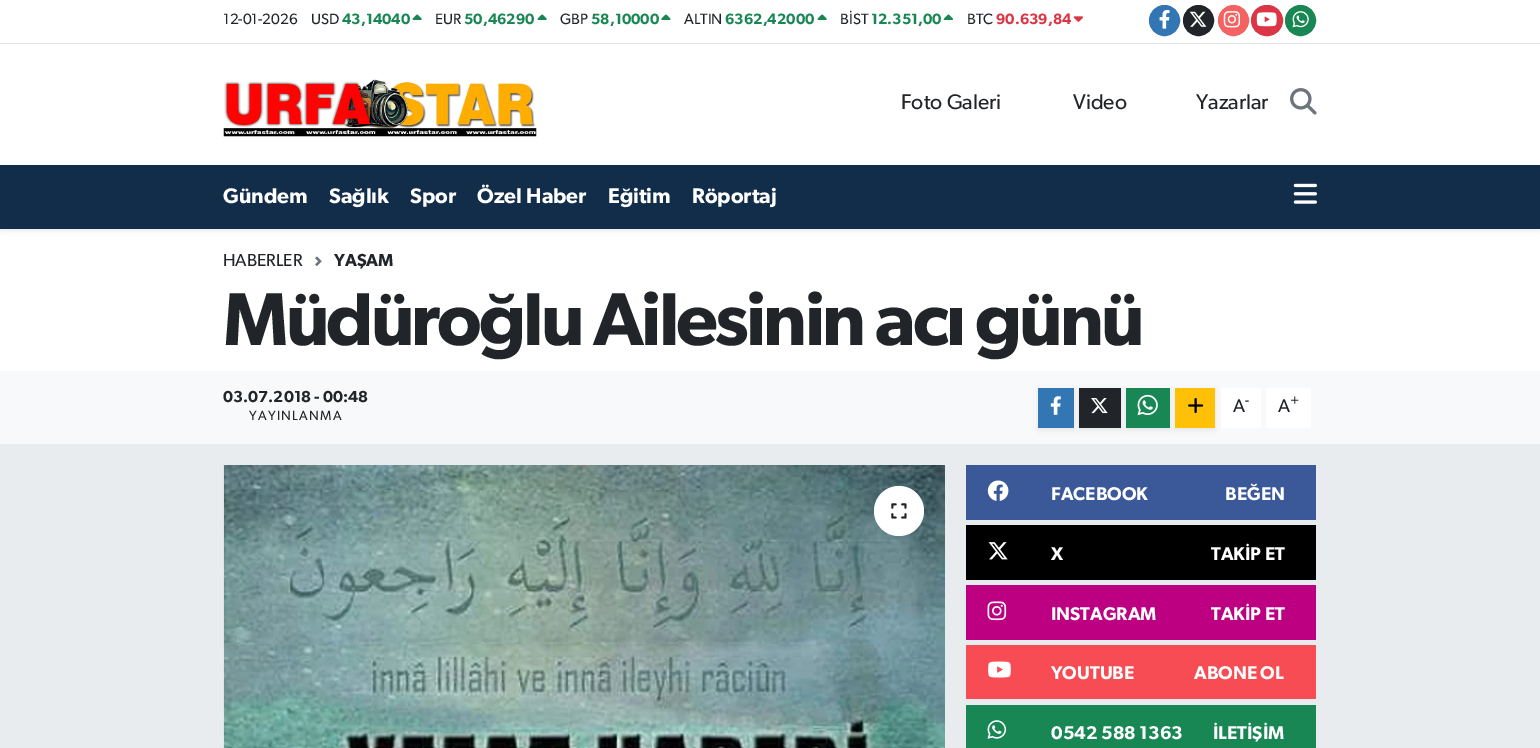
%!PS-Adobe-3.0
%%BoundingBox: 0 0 1540 748
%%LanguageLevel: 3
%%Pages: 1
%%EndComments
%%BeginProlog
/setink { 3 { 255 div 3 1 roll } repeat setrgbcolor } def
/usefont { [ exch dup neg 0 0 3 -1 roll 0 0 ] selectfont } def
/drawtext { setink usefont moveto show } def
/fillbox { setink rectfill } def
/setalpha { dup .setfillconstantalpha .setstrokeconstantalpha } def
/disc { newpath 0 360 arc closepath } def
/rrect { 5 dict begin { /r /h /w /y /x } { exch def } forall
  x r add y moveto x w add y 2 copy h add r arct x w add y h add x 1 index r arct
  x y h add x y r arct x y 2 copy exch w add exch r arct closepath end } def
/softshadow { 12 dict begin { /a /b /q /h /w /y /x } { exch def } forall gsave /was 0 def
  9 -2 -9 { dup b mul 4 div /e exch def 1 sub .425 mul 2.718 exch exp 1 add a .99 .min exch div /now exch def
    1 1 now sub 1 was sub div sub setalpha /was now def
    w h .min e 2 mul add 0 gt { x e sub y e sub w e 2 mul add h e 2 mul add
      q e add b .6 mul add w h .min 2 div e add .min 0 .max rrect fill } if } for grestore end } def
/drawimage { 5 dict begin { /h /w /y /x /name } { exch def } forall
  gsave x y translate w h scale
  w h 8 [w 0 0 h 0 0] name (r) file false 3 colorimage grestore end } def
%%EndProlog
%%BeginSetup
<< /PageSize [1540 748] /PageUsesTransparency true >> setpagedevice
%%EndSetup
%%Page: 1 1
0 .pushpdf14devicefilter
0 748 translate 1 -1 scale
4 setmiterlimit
0 0 1540 748 233 236 239 fillbox
0 0 1540 43 255 255 255 fillbox
0 43 1540 1 222 226 230 fillbox
(12-01-2026) 223 24 /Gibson-Regular 15 33 37 41 drawtext
(USD) 311 24 /Gibson-Regular 15 33 37 41 drawtext
(43,14040) 342 24 /Gibson-SemiBold 15 25 135 84 drawtext
(assets/img1.rgb) 412 14 10 6 drawimage
(EUR) 435 24 /Gibson-Regular 15 33 37 41 drawtext
(50,46290) 464 24 /Gibson-SemiBold 15 25 135 84 drawtext
(assets/img1.rgb) 537 14 10 6 drawimage
(GBP) 560 24 /Gibson-Regular 15 33 37 41 drawtext
(58,10000) 591 24 /Gibson-SemiBold 15 25 135 84 drawtext
(assets/img2.rgb) 661 14 10 6 drawimage
(ALTIN) 684 24 /Gibson-Regular 15 33 37 41 drawtext
(6362,42000) 725 24 /Gibson-SemiBold 15 25 135 84 drawtext
(assets/img1.rgb) 817 14 10 6 drawimage
(BİST) 840 24 /Gibson-Regular 15 33 37 41 drawtext
(12.351,00) 871 24 /Gibson-SemiBold 15 25 135 84 drawtext
(assets/img3.rgb) 943 14 10 6 drawimage
(BTC) 967 24 /Gibson-Regular 15 33 37 41 drawtext
(90.639,84) 996 24 /Gibson-SemiBold 15 220 53 69 drawtext
(assets/img4.rgb) 1073 16 10 6 drawimage
50 118 179 setink
1164.5 20.5 15 disc gsave fill grestore
stroke
(assets/img5.rgb) 1159 10 11 19 drawimage
33 37 41 setink
1198.5 20.5 15 disc gsave fill grestore
stroke
(assets/img6.rgb) 1189 11 18 16 drawimage
244 98 98 setink
1233.5 20.5 15 disc gsave fill grestore
stroke
(assets/img7.rgb) 1223 11 17 17 drawimage
220 53 69 setink
1251.5 5.5 31 30 15 rrect gsave fill grestore
stroke
(assets/img8.rgb) 1256 12 21 15 drawimage
25 135 84 setink
1300.5 20.5 15 disc gsave fill grestore
stroke
(assets/img9.rgb) 1292 11 17 17 drawimage
0 44 1540 121 255 255 255 fillbox
(assets/img10.rgb) 223 79 314 58 drawimage
(Foto Galeri) 901 109 /Gibson-Regular 21.25 33 37 41 drawtext
(Video) 1073 109 /Gibson-Regular 21.25 33 37 41 drawtext
(Yazarlar) 1196 109 /Gibson-Regular 21.25 33 37 41 drawtext
(assets/img11.rgb) 1290 88 27 27 drawimage
0 229 1540 142 255 255 255 fillbox
0 0 0 setink
0 168 1540 63 0 2.5 0.07 softshadow
0 165 1540 64 18 45 74 fillbox
(Gündem) 223 203 /Gibson-SemiBold 21.25 255 255 255 drawtext
(Sağlık) 329 203 /Gibson-SemiBold 21.25 255 255 255 drawtext
(Spor) 410 203 /Gibson-SemiBold 21.25 255 255 255 drawtext
(Özel Haber) 477 203 /Gibson-SemiBold 21.25 255 255 255 drawtext
(Eğitim) 608 203 /Gibson-SemiBold 21.25 255 255 255 drawtext
(Röportaj) 692 203 /Gibson-SemiBold 21.25 255 255 255 drawtext
(assets/img12.rgb) 1293 183 24 21 drawimage
(HABERLER) 223 266 /Gibson-Regular 17.5 33 37 41 drawtext
(assets/img13.rgb) 315 256 7 10 drawimage
(YAŞAM) 334 266 /Gibson-SemiBold 17.5 33 37 41 drawtext
/Gibson-SemiBold 75 usefont
223 345 moveto -2.9 0 (Müdüroğlu Ailesinin acı günü) ashow
0 371 1540 73 248 249 250 fillbox
(03.07.2018 - 00:48) 223 402 /Gibson-SemiBold 16 33 37 41 drawtext
/Gibson-Regular 13.25 usefont
249 420 moveto 1.25 0 (YAYINLANMA) ashow
0 0 0 setink
1038 390 36 40 0 2.5 0.07 softshadow
1038 388 36 40 50 118 179 fillbox
(assets/img14.rgb) 1050 396 11 19 drawimage
0 0 0 setink
1079 390 42 40 0 2.5 0.07 softshadow
1079 388 42 40 33 37 41 fillbox
(assets/img15.rgb) 1091 398 17 16 drawimage
0 0 0 setink
1126 390 44 40 0 2.5 0.07 softshadow
1126 388 44 40 25 135 84 fillbox
(assets/img16.rgb) 1137 394 21 22 drawimage
1221 388 40 40 255 255 255 fillbox
0 0 0 setink
1175 390 40 40 0 2.5 0.07 softshadow
1175 388 40 40 255 193 7 fillbox
(assets/img17.rgb) 1188 398 16 16 drawimage
(A) 1233 412 /Gibson-Regular 18.5 33 37 41 drawtext
(-) 1245 405 /Gibson-Regular 14 33 37 41 drawtext
1266 388 45 40 255 255 255 fillbox
(A) 1278 412 /Gibson-Regular 18.5 33 37 41 drawtext
(+) 1290 405 /Gibson-Regular 14 33 37 41 drawtext
(assets/img18.rgb) 223 465 722 283 drawimage
255 255 255 setink
899 511 25 disc fill
(assets/img19.rgb) 891 503 16 16 drawimage
966 465 350 55 59 89 152 fillbox
(assets/img20.rgb) 987 480 22 21 drawimage
(FACEBOOK) 1051 500 /Gibson-SemiBold 18.5 255 255 255 drawtext
(BEĞEN) 1225 500 /Gibson-SemiBold 18.5 255 255 255 drawtext
966 525 350 55 0 0 0 fillbox
(assets/img21.rgb) 988 542 20 18 drawimage
(X) 1051 560 /Gibson-SemiBold 18.5 255 255 255 drawtext
(TAKİP ET) 1211 560 /Gibson-SemiBold 18.5 255 255 255 drawtext
966 585 350 55 189 0 130 fillbox
(assets/img22.rgb) 987 601 20 20 drawimage
(INSTAGRAM) 1051 620 /Gibson-SemiBold 18.5 255 255 255 drawtext
(TAKİP ET) 1211 620 /Gibson-SemiBold 18.5 255 255 255 drawtext
966 645 350 54 247 76 83 fillbox
(assets/img23.rgb) 988 661 23 17 drawimage
(YOUTUBE) 1051 679 /Gibson-SemiBold 18.5 255 255 255 drawtext
(ABONE OL) 1194 679 /Gibson-SemiBold 18.5 255 255 255 drawtext
966 705 350 43 25 135 84 fillbox
(assets/img24.rgb) 987 720 20 19 drawimage
(0542 588 1363) 1051 739 /Gibson-SemiBold 18.5 255 255 255 drawtext
(İLETİŞİM) 1213 739 /Gibson-SemiBold 18.5 255 255 255 drawtext
.poppdf14devicefilter showpage
%%EOF
